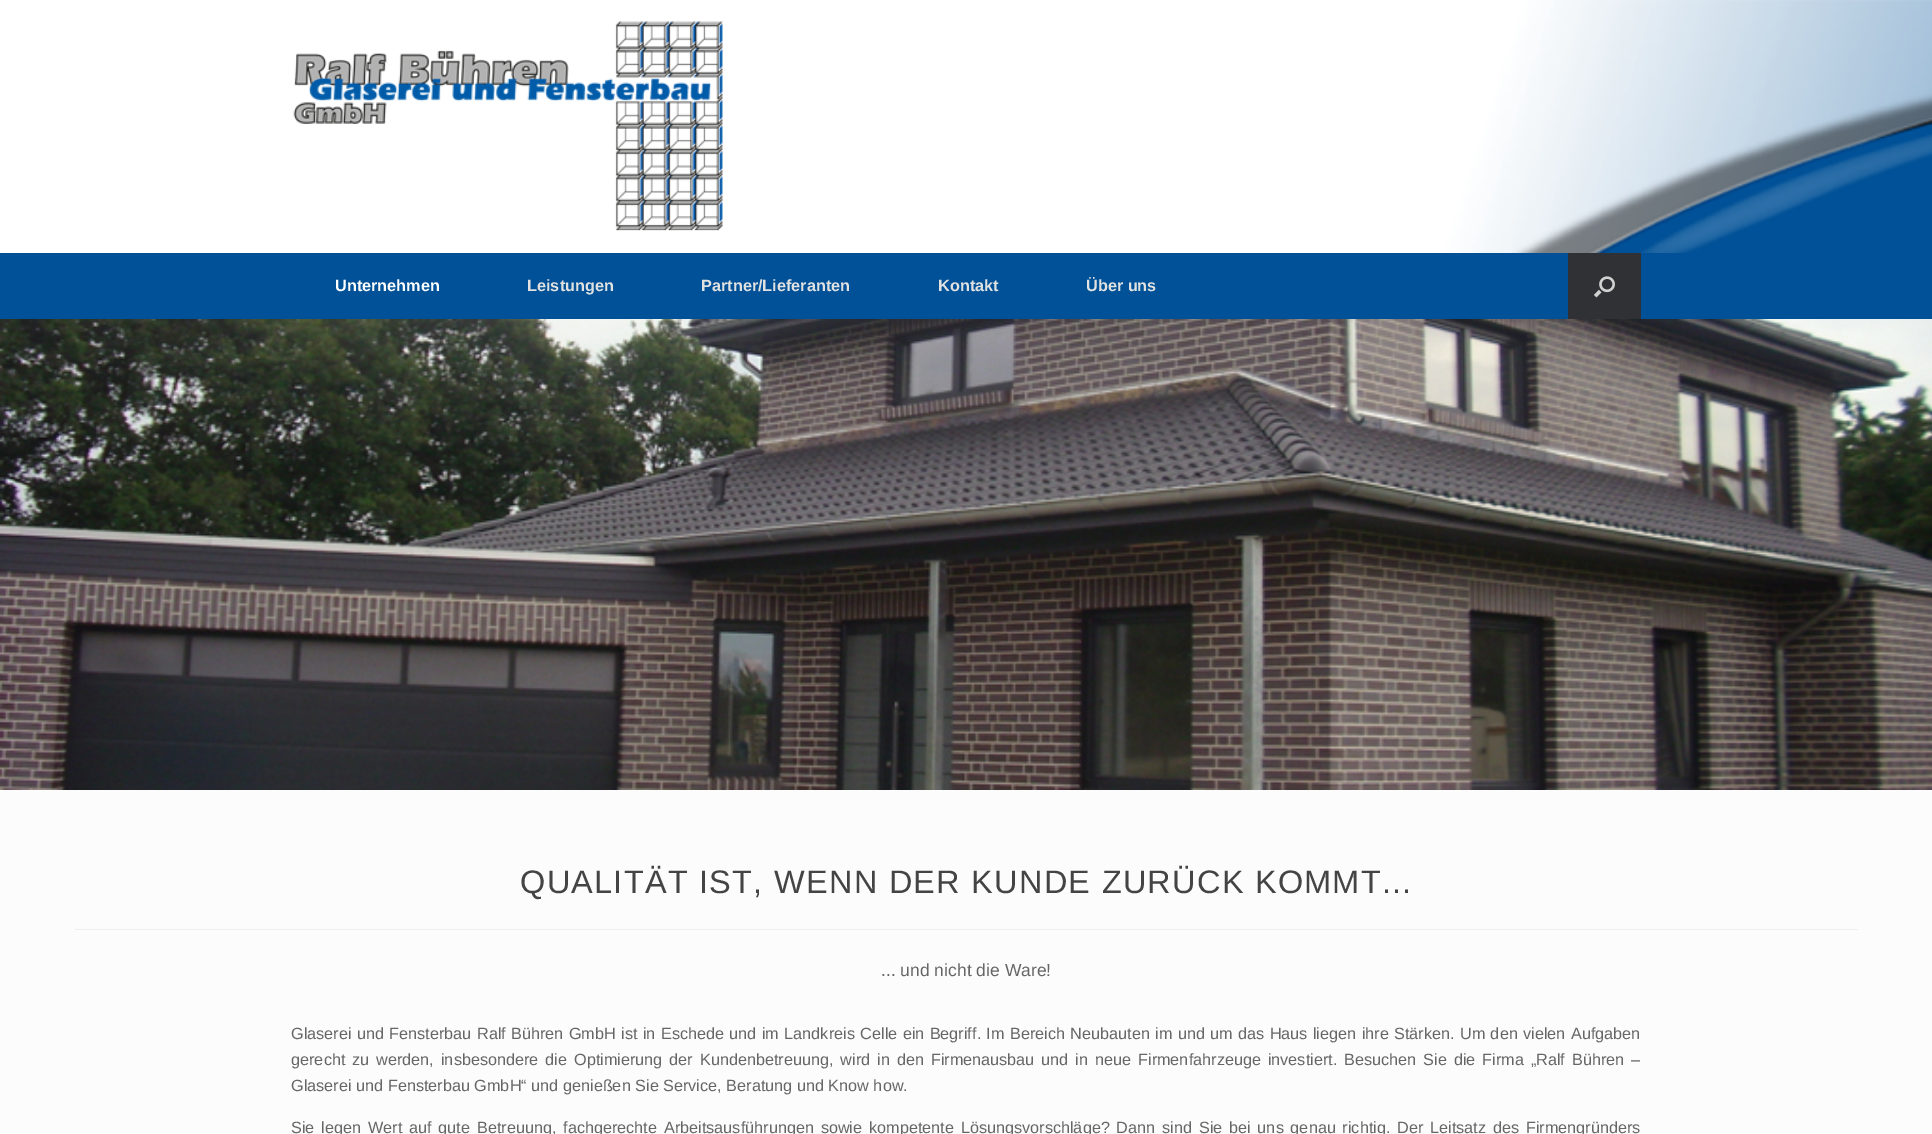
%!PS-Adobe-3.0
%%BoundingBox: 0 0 1932 1134
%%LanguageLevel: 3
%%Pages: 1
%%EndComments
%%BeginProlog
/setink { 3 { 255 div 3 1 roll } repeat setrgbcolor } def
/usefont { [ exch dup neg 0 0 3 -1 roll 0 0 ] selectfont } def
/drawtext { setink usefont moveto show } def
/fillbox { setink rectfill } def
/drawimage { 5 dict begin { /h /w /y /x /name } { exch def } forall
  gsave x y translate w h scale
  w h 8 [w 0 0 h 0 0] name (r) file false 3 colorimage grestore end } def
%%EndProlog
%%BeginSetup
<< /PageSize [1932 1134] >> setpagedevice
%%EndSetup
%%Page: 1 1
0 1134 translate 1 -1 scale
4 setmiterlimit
0 0 1932 1134 255 255 255 fillbox
(assets/img1.rgb) 1414 0 518 253 drawimage
(assets/img2.rgb) 293 21 430 210 drawimage
0 253 1932 66 0 81 151 fillbox
(Unternehmen) 335 291 /LiberationSans-Bold 16.25 255 255 255 drawtext
(Leistungen) 527 291 /LiberationSans-Bold 16.25 226 226 226 drawtext
(Partner/Lieferanten) 701 291 /LiberationSans-Bold 16.25 226 226 226 drawtext
(Kontakt) 938 291 /LiberationSans-Bold 16.25 226 226 226 drawtext
(Über uns) 1086 291 /LiberationSans-Bold 16.25 226 226 226 drawtext
1568 253 73 66 48 49 52 fillbox
(assets/img3.rgb) 1593 276 22 22 drawimage
(assets/img4.rgb) 0 319 1932 471 drawimage
0 790 1932 344 252 252 252 fillbox
/LiberationSans-Regular 32.5 usefont
68 68 68 setink
520 893 moveto 1.25 0 (QUALITÄT IST, WENN DER KUNDE ZURÜCK KOMMT...) ashow
75 929 1783 1 238 238 238 fillbox
(... und nicht die Ware!) 881 976 /LiberationSans-Regular 17.5 102 102 102 drawtext
/LiberationSans-Regular 16.25 usefont
291 1039 moveto 0.85 0 32 (Glaserei und Fensterbau Ralf Bühren GmbH ist in Eschede und im Landkreis Celle ein Begriff. Im Bereich Neubauten im und um das Haus liegen ihre Stärken. Um den vielen Aufgaben) widthshow
291 1065 moveto 2.4 0 32 (gerecht zu werden, insbesondere die Optimierung der Kundenbetreuung, wird in den Firmenausbau und in neue Firmenfahrzeuge investiert. Besuchen Sie die Firma „Ralf Bühren –) widthshow
(Glaserei und Fensterbau GmbH“ und genießen Sie Service, Beratung und Know how.) 291 1091 /LiberationSans-Regular 16.25 102 102 102 drawtext
291 1133 moveto 2.3 0 32 (Sie legen Wert auf gute Betreuung, fachgerechte Arbeitsausführungen sowie kompetente Lösungsvorschläge? Dann sind Sie bei uns genau richtig. Der Leitsatz des Firmengründers) widthshow
showpage
%%EOF
